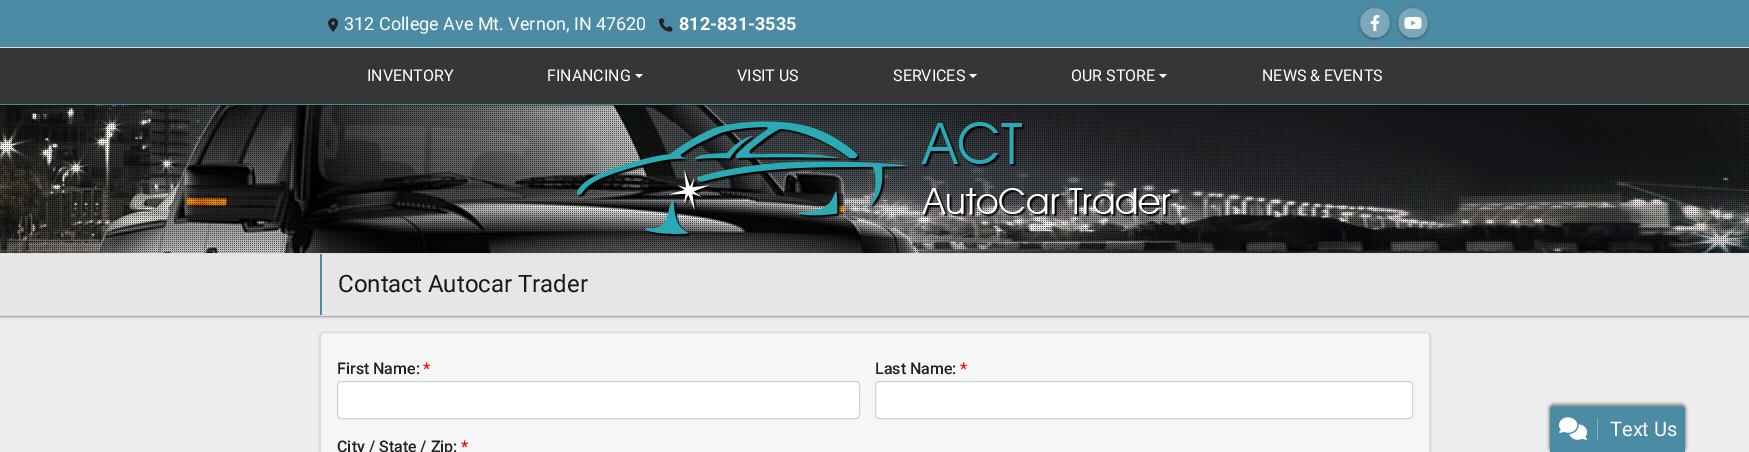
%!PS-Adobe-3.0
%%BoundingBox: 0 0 1749 452
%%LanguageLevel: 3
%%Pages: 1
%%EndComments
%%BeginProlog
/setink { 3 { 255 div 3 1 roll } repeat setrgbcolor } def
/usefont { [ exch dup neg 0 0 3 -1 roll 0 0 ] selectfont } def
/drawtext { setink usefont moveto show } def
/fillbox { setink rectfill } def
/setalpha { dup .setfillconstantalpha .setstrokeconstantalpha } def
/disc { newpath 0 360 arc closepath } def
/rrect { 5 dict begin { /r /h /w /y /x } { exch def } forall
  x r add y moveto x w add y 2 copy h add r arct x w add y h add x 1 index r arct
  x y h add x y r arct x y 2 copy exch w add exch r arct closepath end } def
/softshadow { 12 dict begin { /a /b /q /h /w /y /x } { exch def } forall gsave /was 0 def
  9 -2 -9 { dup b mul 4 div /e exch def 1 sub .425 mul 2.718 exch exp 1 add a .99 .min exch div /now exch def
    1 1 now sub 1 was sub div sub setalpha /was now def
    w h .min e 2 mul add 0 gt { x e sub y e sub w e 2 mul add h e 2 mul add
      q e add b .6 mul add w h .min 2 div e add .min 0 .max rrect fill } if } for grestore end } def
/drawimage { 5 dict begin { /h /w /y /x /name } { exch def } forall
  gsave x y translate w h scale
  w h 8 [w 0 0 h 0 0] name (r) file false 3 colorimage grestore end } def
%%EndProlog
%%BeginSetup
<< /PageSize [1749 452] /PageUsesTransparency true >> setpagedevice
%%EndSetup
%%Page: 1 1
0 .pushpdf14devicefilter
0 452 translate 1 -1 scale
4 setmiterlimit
0 0 1749 452 238 238 238 fillbox
(assets/img5.rgb) 0 105 1749 148 drawimage
(assets/img6.rgb) 0 105 1749 147 drawimage
0 0 0 setink
0 1 1749 105 0 0.5 0.2 softshadow
-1 0 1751 107 0 1 0.1 softshadow
0 0 1749 47 75 139 163 fillbox
(assets/img1.rgb) 328 18 11 14 drawimage
(312 College Ave Mt. Vernon, IN 47620) 344 30 /Roboto-Regular 18 255 255 255 drawtext
(assets/img2.rgb) 659 18 14 14 drawimage
(812-831-3535) 679 30 /Roboto-Bold 18 255 255 255 drawtext
gsave
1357 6 moveto 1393 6 lineto 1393 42 lineto 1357 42 lineto closepath 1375 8 moveto 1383.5 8 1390 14.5 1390 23 curveto 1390 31.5 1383.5 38 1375 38 curveto 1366.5 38 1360 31.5 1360 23 curveto 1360 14.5 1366.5 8 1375 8 curveto closepath eoclip newpath
0 0 0 setink
1360 9 30 30 15 0.5 0.2 softshadow
grestore
gsave
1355 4 moveto 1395 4 lineto 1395 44 lineto 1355 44 lineto closepath 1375 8 moveto 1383.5 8 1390 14.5 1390 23 curveto 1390 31.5 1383.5 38 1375 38 curveto 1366.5 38 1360 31.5 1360 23 curveto 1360 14.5 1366.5 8 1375 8 curveto closepath eoclip newpath
0 0 0 setink
1359 8 32 32 16 1 0.1 softshadow
grestore
0.3 setalpha
238 238 238 setink
1375 23 15 disc fill
1 setalpha
(assets/img3.rgb) 1370 15 10 16 drawimage
gsave
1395 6 moveto 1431 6 lineto 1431 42 lineto 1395 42 lineto closepath 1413 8 moveto 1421.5 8 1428 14.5 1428 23 curveto 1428 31.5 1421.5 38 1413 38 curveto 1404.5 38 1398 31.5 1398 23 curveto 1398 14.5 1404.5 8 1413 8 curveto closepath eoclip newpath
0 0 0 setink
1398 9 30 30 15 0.5 0.2 softshadow
grestore
gsave
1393 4 moveto 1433 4 lineto 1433 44 lineto 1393 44 lineto closepath 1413 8 moveto 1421.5 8 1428 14.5 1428 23 curveto 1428 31.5 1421.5 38 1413 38 curveto 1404.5 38 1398 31.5 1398 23 curveto 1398 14.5 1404.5 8 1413 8 curveto closepath eoclip newpath
0 0 0 setink
1397 8 32 32 16 1 0.1 softshadow
grestore
0.3 setalpha
1413 23 15 disc fill
1 setalpha
(assets/img4.rgb) 1404 17 18 12 drawimage
0 48 1749 56 54 54 54 fillbox
0 47 1749 1 220 220 220 fillbox
0 104 1749 1 75 139 163 fillbox
(INVENTORY) 367 81 /Roboto-Regular 16 255 255 255 drawtext
(FINANCING) 547 81 /Roboto-Regular 16 255 255 255 drawtext
635 74 moveto 643 74 lineto 639 78 lineto closepath fill
(VISIT US) 737 81 /Roboto-Regular 16 255 255 255 drawtext
(SERVICES) 893 81 /Roboto-Regular 16 255 255 255 drawtext
969 74 moveto 977 74 lineto 973 78 lineto closepath fill
(OUR STORE) 1071 81 /Roboto-Regular 16 255 255 255 drawtext
1159 74 moveto 1167 74 lineto 1163 78 lineto closepath fill
(NEWS & EVENTS) 1262 81 /Roboto-Regular 16 255 255 255 drawtext
(assets/img7.rgb) 577 121 596 116 drawimage
0 0 0 setink
0 254 1749 63 0 0.5 0.2 softshadow
-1 253 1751 65 0 1 0.1 softshadow
0 254 1749 61 230 230 230 fillbox
0 253 1749 1 220 220 220 fillbox
0 315 1749 1 220 220 220 fillbox
320 254 2 61 75 139 163 fillbox
(Contact Autocar Trader) 338 292 /Roboto-Regular 24 24 24 24 drawtext
gsave
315 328 moveto 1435 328 lineto 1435 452 lineto 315 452 lineto closepath 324 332 moveto 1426 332 lineto 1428 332 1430 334 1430 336 curveto 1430 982 lineto 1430 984 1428 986 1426 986 curveto 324 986 lineto 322 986 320 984 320 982 curveto 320 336 lineto 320 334 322 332 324 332 curveto closepath eoclip newpath
0 0 0 setink
319 332 1112 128 5 1 0.1 softshadow
grestore
0.6 setalpha
251 251 251 setink
320.5 332.5 1109 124 3.5 rrect fill
1 setalpha
220 220 220 setink
320.5 332.5 1109 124 3.5 rrect stroke
(First Name:) 337 374 /Roboto-Medium 16 34 34 34 drawtext
(*) 423 374 /Roboto-Medium 16 255 0 0 drawtext
255 255 255 setink
337.5 381.5 522 37 3.5 rrect gsave fill grestore
206 212 218 setink
stroke
(Last Name:) 875 374 /Roboto-Medium 16 34 34 34 drawtext
(*) 960 374 /Roboto-Medium 16 255 0 0 drawtext
255 255 255 setink
875.5 381.5 537 37 3.5 rrect gsave fill grestore
206 212 218 setink
stroke
(City / State / Zip:) 337 452 /Roboto-Medium 16 34 34 34 drawtext
(*) 461 452 /Roboto-Medium 16 255 0 0 drawtext
0 0 0 setink
1549 404 137 48 5 1 0.25 softshadow
1548 403 139 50 6 1.5 0.15 softshadow
75 139 163 setink
1554 406 moveto 1681 406 lineto 1683 406 1685 408 1685 410 curveto 1685 452 lineto 1550 452 lineto 1550 410 lineto 1550 408 1552 406 1554 406 curveto closepath fill
1597 418 1 23 129 174 191 fillbox
(assets/img8.rgb) 1559 417 29 23 drawimage
(Text Us) 1610 436 /Roboto-Regular 20 255 255 255 drawtext
.poppdf14devicefilter showpage
%%EOF
